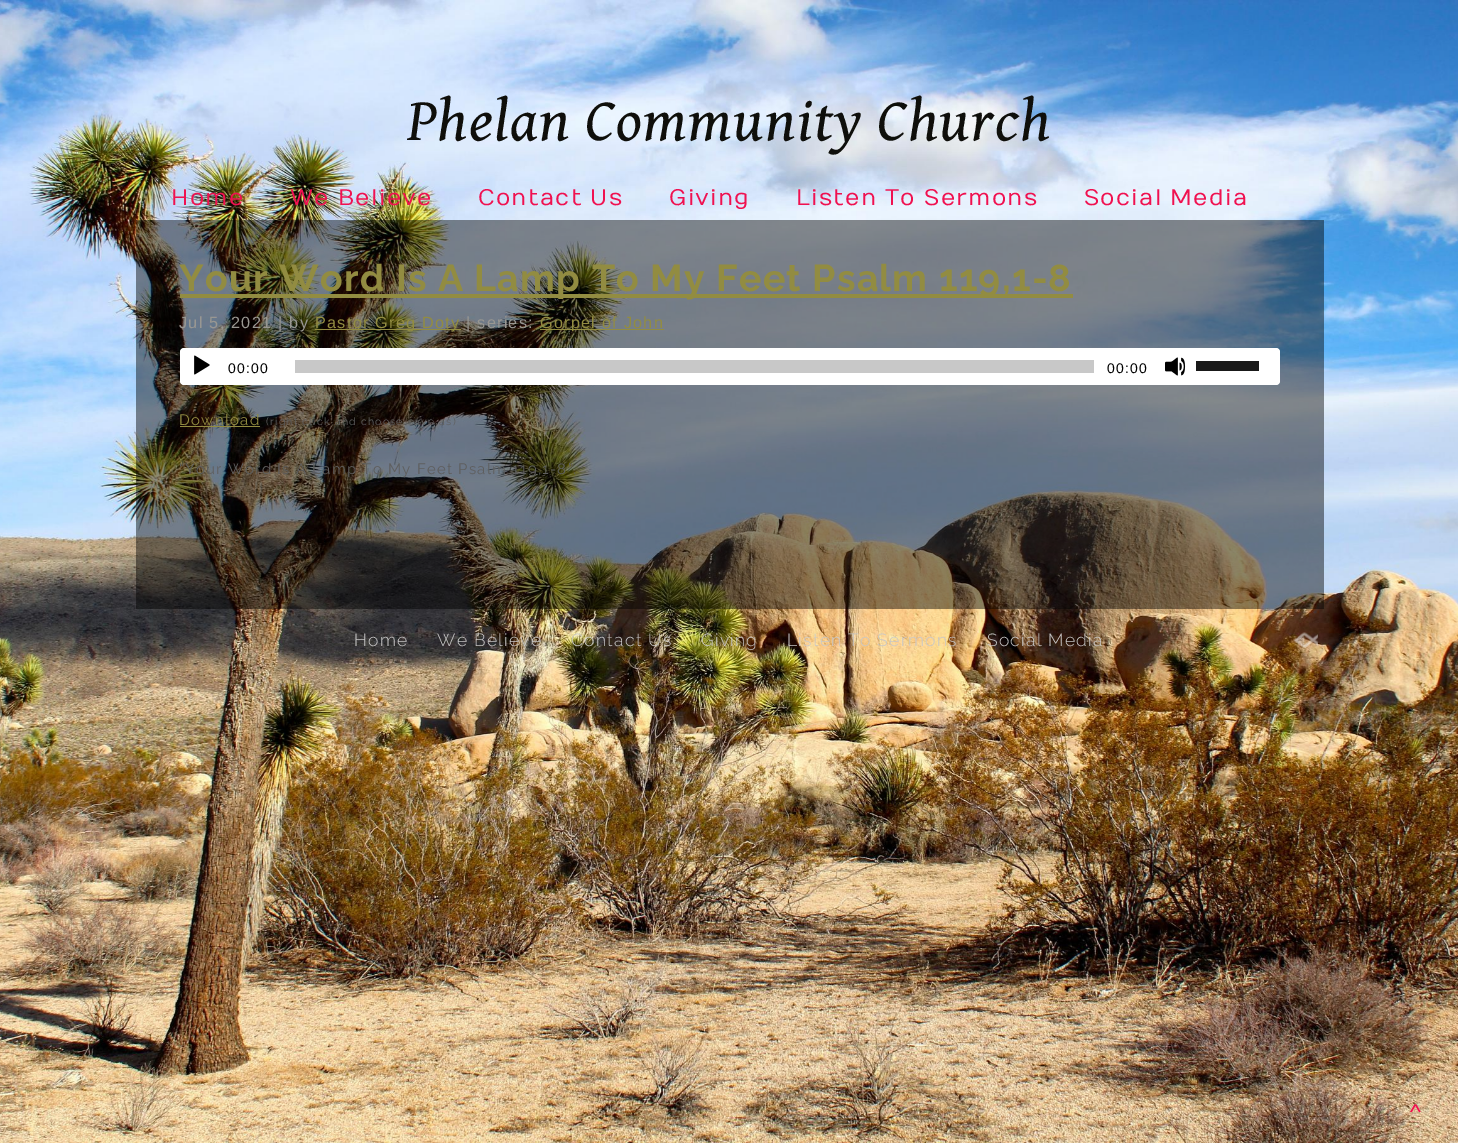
%!PS-Adobe-3.0
%%BoundingBox: 0 0 1458 1143
%%LanguageLevel: 3
%%Pages: 1
%%EndComments
%%BeginProlog
/setink { 3 { 255 div 3 1 roll } repeat setrgbcolor } def
/usefont { [ exch dup neg 0 0 3 -1 roll 0 0 ] selectfont } def
/fillbox { setink rectfill } def
/setalpha { dup .setfillconstantalpha .setstrokeconstantalpha } def
/rrect { 5 dict begin { /r /h /w /y /x } { exch def } forall
  x r add y moveto x w add y 2 copy h add r arct x w add y h add x 1 index r arct
  x y h add x y r arct x y 2 copy exch w add exch r arct closepath end } def
/drawimage { 5 dict begin { /h /w /y /x /name } { exch def } forall
  gsave x y translate w h scale
  w h 8 [w 0 0 h 0 0] name (r) file false 3 colorimage grestore end } def
%%EndProlog
%%BeginSetup
<< /PageSize [1458 1143] /PageUsesTransparency true >> setpagedevice
%%EndSetup
%%Page: 1 1
0 .pushpdf14devicefilter
0 1143 translate 1 -1 scale
4 setmiterlimit
0 0 1458 1143 255 255 255 fillbox
(assets/img1.rgb) 0 0 1458 1143 drawimage
/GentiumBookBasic-Italic 60 usefont
15 15 11 setink
407 140 moveto 1.25 0 (Phelan Community Church) ashow
/Numans-Regular 22.5 usefont
240 17 80 setink
171 205 moveto 1.25 0 (Home) ashow
290 205 moveto 1.25 0 (We Believe) ashow
478 205 moveto 1.25 0 (Contact Us) ashow
669 205 moveto 1.25 0 (Giving) ashow
796 205 moveto 1.25 0 (Listen To Sermons) ashow
1084 205 moveto 1.25 0 (Social Media) ashow
0.45 setalpha
136 220 1188 389 0 0 0 fillbox
1 setalpha
180 294 893 4 146 140 65 fillbox
/Raleway-Bold 37.5 usefont
179 291 moveto 1.25 0 (Your Word Is A Lamp To My Feet Psalm 119,1-8) ashow
/LiberationSans-Regular 16.25 usefont
153 151 146 setink
179 328 moveto 1.25 0 (Jul 5, 2021 | by) ashow
315 329 146 1 146 140 65 fillbox
315 328 moveto 1.25 0 (Pastor Greg Doty) ashow
153 151 146 setink
466 328 moveto 1.25 0 (| series:) ashow
540 329 124 1 146 140 65 fillbox
540 328 moveto 1.25 0 (Gorpel of John) ashow
255 255 255 setink
180 348 1100 37 4 rrect fill
(assets/img2.rgb) 194 355 16 20 drawimage
/LiberationSans-Regular 14 usefont
0 0 0 setink
228 373 moveto 1.25 0 (00:00) ashow
295 360 799 13 200 200 200 fillbox
0 0 0 setink
1107 373 moveto 1.25 0 (00:00) ashow
(assets/img3.rgb) 1165 357 21 19 drawimage
1196 361 63 10 25 25 25 fillbox
/Raleway-Regular 15 usefont
146 140 65 setink
179 425 moveto 1.25 0 (Download) ashow
180 426 80 1 146 140 65 fillbox
/Raleway-Regular 10.5 usefont
94 94 94 setink
266 425 moveto 1.25 0 (\(right click and choose save as\)) ashow
/Raleway-Regular 15 usefont
179 474 moveto 1.25 0 (“Your Word Is A Lamp To My Feet Psalm 119,1-8”.) ashow
/Raleway-Light 17.5 usefont
200 199 199 setink
354 646 moveto 1.25 0 (Home) ashow
437 646 moveto 1.25 0 (We Believe) ashow
571 646 moveto 1.25 0 (Contact Us) ashow
701 646 moveto 1.25 0 (Giving) ashow
787 646 moveto 1.25 0 (Listen To Sermons) ashow
987 646 moveto 1.25 0 (Social Media) ashow
(assets/img4.rgb) 1293 632 25 16 drawimage
/Numans-Regular 22.5 usefont
240 17 80 setink
1409 1120 moveto 1.25 0 (^) ashow
.poppdf14devicefilter showpage
%%EOF
